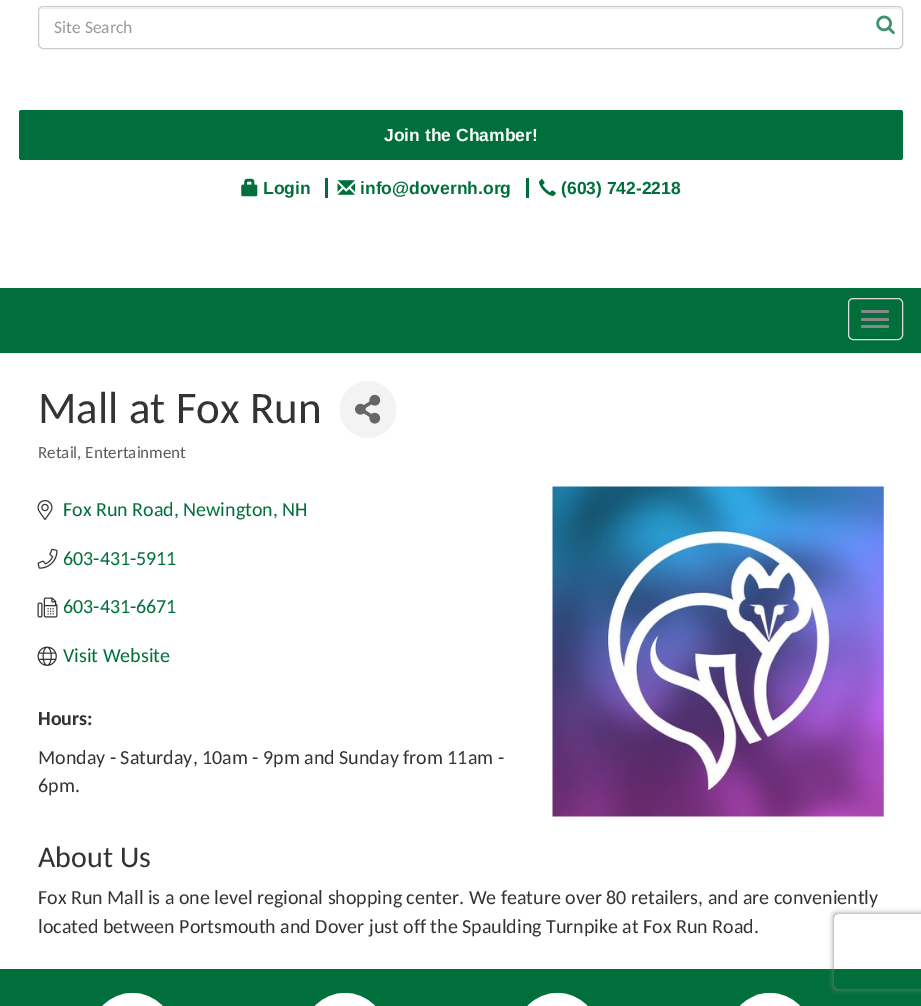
%!PS-Adobe-3.0
%%BoundingBox: 0 0 921 1006
%%LanguageLevel: 3
%%Pages: 1
%%EndComments
%%BeginProlog
/setink { 3 { 255 div 3 1 roll } repeat setrgbcolor } def
/usefont { [ exch dup neg 0 0 3 -1 roll 0 0 ] selectfont } def
/drawtext { setink usefont moveto show } def
/fillbox { setink rectfill } def
/setalpha { dup .setfillconstantalpha .setstrokeconstantalpha } def
/rrect { 5 dict begin { /r /h /w /y /x } { exch def } forall
  x r add y moveto x w add y 2 copy h add r arct x w add y h add x 1 index r arct
  x y h add x y r arct x y 2 copy exch w add exch r arct closepath end } def
/softshadow { 12 dict begin { /a /b /q /h /w /y /x } { exch def } forall gsave /was 0 def
  9 -2 -9 { dup b mul 4 div /e exch def 1 sub .425 mul 2.718 exch exp 1 add a .99 .min exch div /now exch def
    1 1 now sub 1 was sub div sub setalpha /was now def
    w h .min e 2 mul add 0 gt { x e sub y e sub w e 2 mul add h e 2 mul add
      q e add b .6 mul add w h .min 2 div e add .min 0 .max rrect fill } if } for grestore end } def
/drawimage { 5 dict begin { /h /w /y /x /name } { exch def } forall
  gsave x y translate w h scale
  w h 8 [w 0 0 h 0 0] name (r) file false 3 colorimage grestore end } def
%%EndProlog
%%BeginSetup
<< /PageSize [921 1006] /PageUsesTransparency true >> setpagedevice
%%EndSetup
%%Page: 1 1
0 .pushpdf14devicefilter
0 1006 translate 1 -1 scale
4 setmiterlimit
0 0 921 1006 255 255 255 fillbox
236 236 236 setink
42 9 moveto 898 9 lineto 900 10 lineto 900 9 898 8 897 8 curveto 43 8 lineto 42 8 40 9 40 10 curveto closepath fill
204 204 204 setink
38.5 6.5 864 42 4.5 rrect stroke
(Site Search) 54 33 /Carlito-Regular 17.5 153 153 153 drawtext
(assets/img1.rgb) 876 15 19 20 drawimage
0 111 60 setink
19 110 884 50 2.5 rrect fill
(Join the Chamber!) 384 141 /LiberationSans-Bold 17.5 255 255 255 drawtext
(assets/img2.rgb) 241 178 17 19 drawimage
(Login) 263 194 /LiberationSans-Bold 17.5 0 111 60 drawtext
325 178 3 20 0 111 60 fillbox
(assets/img3.rgb) 337 180 18 15 drawimage
(info@dovernh.org) 360 194 /LiberationSans-Bold 17.5 0 111 60 drawtext
526 178 3 20 0 111 60 fillbox
(assets/img4.rgb) 539 179 17 17 drawimage
(\(603\) 742-2218) 561 194 /LiberationSans-Bold 17.5 0 111 60 drawtext
0 288 921 65 0 111 60 fillbox
221 221 221 setink
848.5 298.5 54 41 4.5 rrect stroke
136 136 136 setink
861 310 28 3 1.5 rrect fill
861 318 28 3 1.5 rrect fill
861 325 28 3 1.5 rrect fill
(Mall at Fox Run) 38 423 /Carlito-Regular 45 51 51 51 drawtext
243 243 243 setink
340 381 56 57 28 rrect fill
(assets/img5.rgb) 355 394 26 30 drawimage
(Retail, Entertainment) 38 458 /Carlito-Regular 17 92 92 92 drawtext
(assets/img6.rgb) 37 500 16 20 drawimage
(Fox Run Road, Newington, NH) 63 516 /Carlito-Regular 20 0 111 60 drawtext
(assets/img7.rgb) 37 548 21 21 drawimage
(603-431-5911) 63 565 /Carlito-Regular 20 0 111 60 drawtext
(assets/img8.rgb) 37 597 21 21 drawimage
(603-431-6671) 63 613 /Carlito-Regular 20 0 111 60 drawtext
(assets/img9.rgb) 37 646 20 20 drawimage
(Visit Website) 63 662 /Carlito-Regular 20 0 111 60 drawtext
(Hours:) 38 725 /Carlito-Bold 20 51 51 51 drawtext
(Monday - Saturday, 10am - 9pm and Sunday from 11am -) 38 764 /Carlito-Regular 20 51 51 51 drawtext
(6pm.) 38 792 /Carlito-Regular 20 51 51 51 drawtext
(assets/img10.rgb) 552 486 332 331 drawimage
(About Us) 38 867 /Carlito-Regular 30 51 51 51 drawtext
(Fox Run Mall is a one level regional shopping center. We feature over 80 retailers, and are conveniently) 38 904 /Carlito-Regular 20 51 51 51 drawtext
(located between Portsmouth and Dover just off the Spaulding Turnpike at Fox Run Road.) 38 933 /Carlito-Regular 20 51 51 51 drawtext
0 969 921 37 0 111 60 fillbox
(assets/img11.rgb) 102 992 61 14 drawimage
(assets/img12.rgb) 315 992 60 14 drawimage
(assets/img13.rgb) 527 992 61 14 drawimage
(assets/img14.rgb) 740 992 60 14 drawimage
gsave
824 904 moveto 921 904 lineto 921 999 lineto 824 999 lineto closepath 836.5 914 moveto 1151.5 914 lineto 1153 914 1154 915 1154 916.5 curveto 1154 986.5 lineto 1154 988 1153 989 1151.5 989 curveto 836.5 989 lineto 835 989 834 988 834 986.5 curveto 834 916.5 lineto 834 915 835 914 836.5 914 curveto closepath eoclip newpath
128 128 128 setink
834 914 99 75 2.5 3 1 softshadow
grestore
.poppdf14devicefilter showpage
%%EOF
